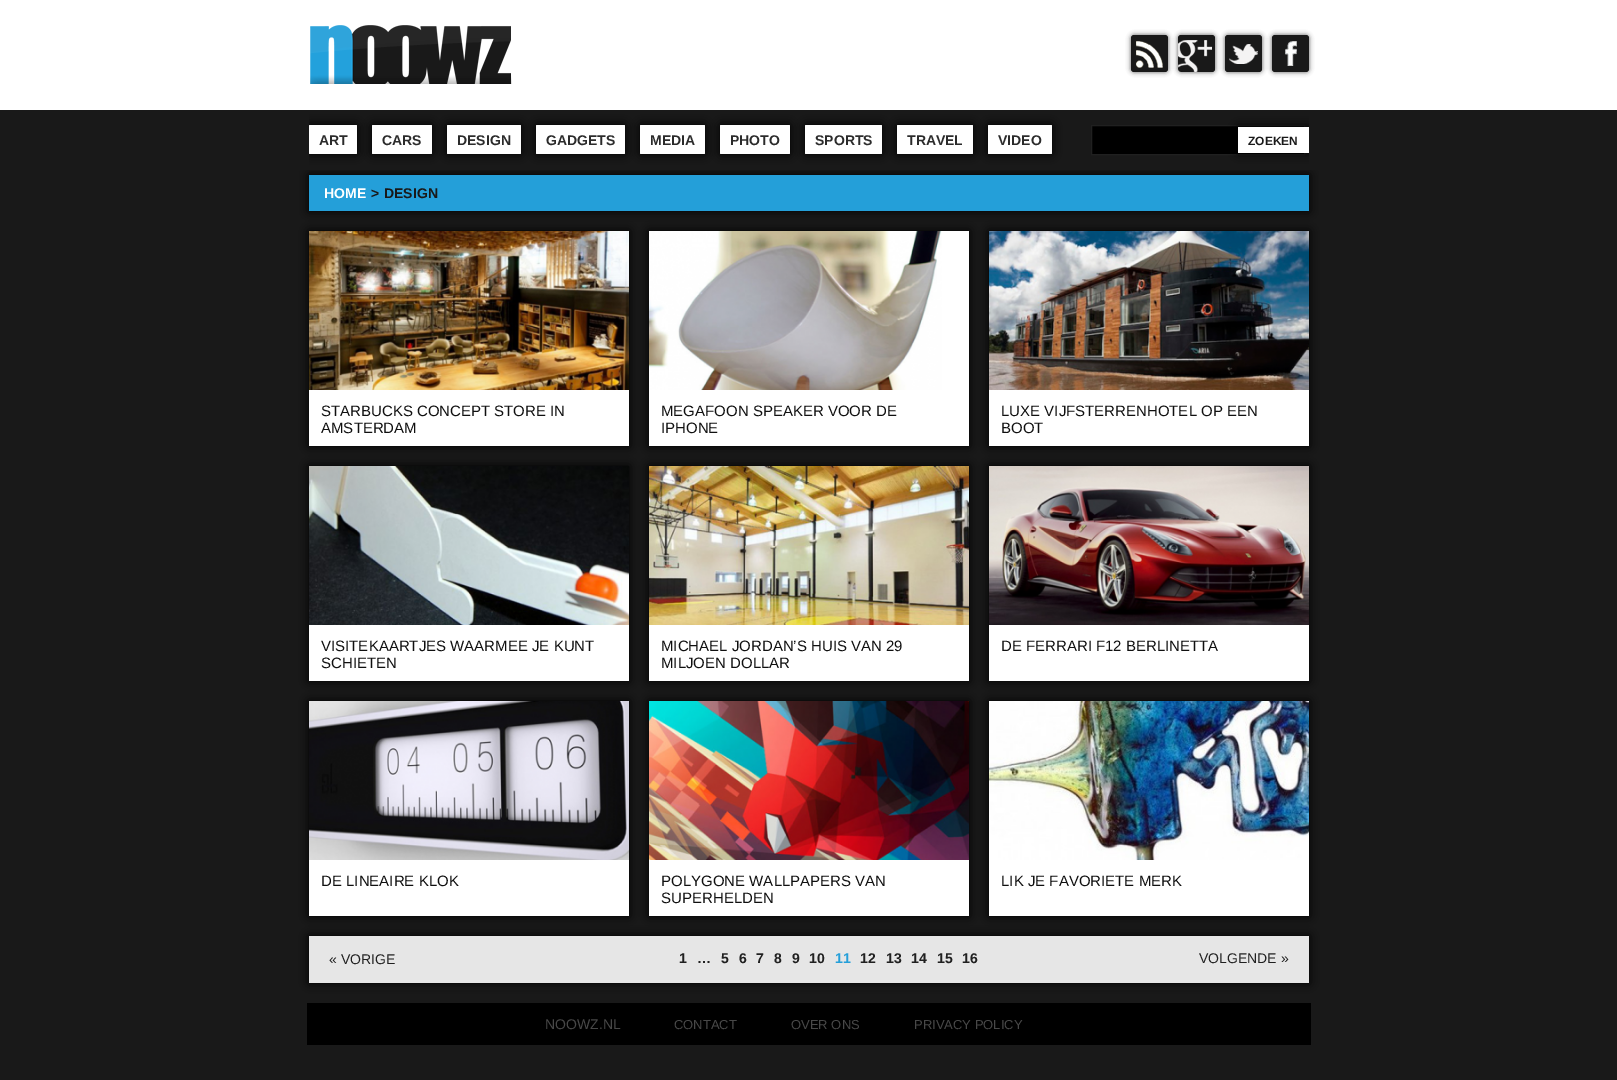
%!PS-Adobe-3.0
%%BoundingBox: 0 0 1617 1080
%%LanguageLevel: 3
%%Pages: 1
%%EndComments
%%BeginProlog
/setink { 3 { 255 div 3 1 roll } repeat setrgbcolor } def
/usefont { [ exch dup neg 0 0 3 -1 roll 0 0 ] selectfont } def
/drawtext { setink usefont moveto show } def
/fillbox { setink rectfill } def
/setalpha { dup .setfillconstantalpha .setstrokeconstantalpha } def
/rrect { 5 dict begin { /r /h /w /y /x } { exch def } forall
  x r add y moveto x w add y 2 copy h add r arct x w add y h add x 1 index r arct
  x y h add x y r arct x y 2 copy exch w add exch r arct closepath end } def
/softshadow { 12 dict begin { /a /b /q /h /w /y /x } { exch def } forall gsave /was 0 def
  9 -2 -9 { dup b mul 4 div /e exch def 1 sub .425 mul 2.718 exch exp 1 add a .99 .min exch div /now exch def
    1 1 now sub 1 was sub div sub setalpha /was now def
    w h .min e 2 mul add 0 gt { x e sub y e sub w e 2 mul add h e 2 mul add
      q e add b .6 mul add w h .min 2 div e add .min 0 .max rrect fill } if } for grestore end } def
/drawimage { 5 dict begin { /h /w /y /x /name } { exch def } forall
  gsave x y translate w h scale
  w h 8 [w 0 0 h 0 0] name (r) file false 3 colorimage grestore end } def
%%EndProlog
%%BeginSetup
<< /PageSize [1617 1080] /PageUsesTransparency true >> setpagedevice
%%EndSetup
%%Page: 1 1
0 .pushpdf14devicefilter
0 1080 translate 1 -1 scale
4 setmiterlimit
0 0 1617 1080 25 25 25 fillbox
0 0 1617 110 255 255 255 fillbox
(assets/img1.rgb) 310 25 202 59 drawimage
96 96 96 setink
1131 35 37 37 3 2.5 1 softshadow
25 25 25 setink
1131 35 37 37 3 rrect fill
(assets/img2.rgb) 1136 41 27 27 drawimage
96 96 96 setink
1178 35 37 37 3 2.5 1 softshadow
25 25 25 setink
1178 35 37 37 3 rrect fill
(assets/img3.rgb) 1178 40 34 32 drawimage
96 96 96 setink
1225 35 37 37 3 2.5 1 softshadow
25 25 25 setink
1225 35 37 37 3 rrect fill
(assets/img4.rgb) 1229 44 29 20 drawimage
96 96 96 setink
1272 35 37 37 3 2.5 1 softshadow
25 25 25 setink
1272 35 37 37 3 rrect fill
(assets/img5.rgb) 1285 41 12 25 drawimage
gsave
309 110 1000 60 rectclip
0 0 0 setink
309 125 48 29 1 5 1 softshadow
grestore
255 255 255 setink
309 125 48 29 1 rrect fill
(ART) 319 145 /LiberationSans-Bold 14 43 43 43 drawtext
0 0 0 setink
372 125 60 29 1 5 1 softshadow
255 255 255 setink
372 125 60 29 1 rrect fill
(CARS) 382 145 /LiberationSans-Bold 14 43 43 43 drawtext
0 0 0 setink
447 125 74 29 1 5 1 softshadow
255 255 255 setink
447 125 74 29 1 rrect fill
(DESIGN) 457 145 /LiberationSans-Bold 14 43 43 43 drawtext
0 0 0 setink
536 125 89 29 1 5 1 softshadow
255 255 255 setink
536 125 89 29 1 rrect fill
(GADGETS) 546 145 /LiberationSans-Bold 14 43 43 43 drawtext
0 0 0 setink
640 125 65 29 1 5 1 softshadow
255 255 255 setink
640 125 65 29 1 rrect fill
(MEDIA) 650 145 /LiberationSans-Bold 14 43 43 43 drawtext
0 0 0 setink
720 125 70 29 1 5 1 softshadow
255 255 255 setink
720 125 70 29 1 rrect fill
(PHOTO) 730 145 /LiberationSans-Bold 14 43 43 43 drawtext
0 0 0 setink
805 125 77 29 1 5 1 softshadow
255 255 255 setink
805 125 77 29 1 rrect fill
(SPORTS) 815 145 /LiberationSans-Bold 14 43 43 43 drawtext
0 0 0 setink
897 125 76 29 1 5 1 softshadow
255 255 255 setink
897 125 76 29 1 rrect fill
(TRAVEL) 907 145 /LiberationSans-Bold 14 43 43 43 drawtext
0 0 0 setink
988 125 64 29 1 5 1 softshadow
255 255 255 setink
988 125 64 29 1 rrect fill
(VIDEO) 998 145 /LiberationSans-Bold 14 43 43 43 drawtext
0 0 0 setink
1091.5 125.5 moveto 1304.5 125.5 lineto 1304.5 154.5 lineto 1091.5 154.5 lineto closepath gsave fill grestore
32 32 32 setink
stroke
gsave
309 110 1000 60 rectclip
0 0 0 setink
1238 127 71 26 0 5 1 softshadow
grestore
1238 127 71 26 255 255 255 fillbox
(ZOEKEN) 1248 145 /LiberationSans-Bold 12 25 25 25 drawtext
gsave
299 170 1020 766 rectclip
0 0 0 setink
309 175 1000 36 0 5 1 softshadow
grestore
309 175 1000 36 36 159 217 fillbox
(HOME) 324 198 /LiberationSans-Bold 14 255 255 255 drawtext
(>) 371 198 /LiberationSans-Bold 14 25 25 25 drawtext
(DESIGN) 384 198 /LiberationSans-Bold 14 25 25 25 drawtext
0 0 0 setink
309 231 320 215 0 5 1 softshadow
(assets/img6.rgb) 309 231 320 159 drawimage
309 390 320 56 255 255 255 fillbox
(STARBUCKS CONCEPT STORE IN) 321 416 /LiberationSans-Regular 15 16 16 16 drawtext
(AMSTERDAM) 321 433 /LiberationSans-Regular 15 16 16 16 drawtext
0 0 0 setink
649 231 320 215 0 5 1 softshadow
942 231 27 159 255 255 255 fillbox
(assets/img7.rgb) 649 231 293 159 drawimage
649 390 320 56 255 255 255 fillbox
(MEGAFOON SPEAKER VOOR DE) 661 416 /LiberationSans-Regular 15 16 16 16 drawtext
(IPHONE) 661 433 /LiberationSans-Regular 15 16 16 16 drawtext
0 0 0 setink
989 231 320 215 0 5 1 softshadow
(assets/img8.rgb) 989 231 320 159 drawimage
989 390 320 56 255 255 255 fillbox
(LUXE VIJFSTERRENHOTEL OP EEN) 1001 416 /LiberationSans-Regular 15 16 16 16 drawtext
(BOOT) 1001 433 /LiberationSans-Regular 15 16 16 16 drawtext
0 0 0 setink
309 466 320 215 0 5 1 softshadow
(assets/img9.rgb) 309 466 320 159 drawimage
309 625 320 56 255 255 255 fillbox
(VISITEKAARTJES WAARMEE JE KUNT) 321 651 /LiberationSans-Regular 15 16 16 16 drawtext
(SCHIETEN) 321 668 /LiberationSans-Regular 15 16 16 16 drawtext
0 0 0 setink
649 466 320 215 0 5 1 softshadow
(assets/img10.rgb) 649 466 320 159 drawimage
649 625 320 56 255 255 255 fillbox
(MICHAEL JORDAN’S HUIS VAN 29) 661 651 /LiberationSans-Regular 15 16 16 16 drawtext
(MILJOEN DOLLAR) 661 668 /LiberationSans-Regular 15 16 16 16 drawtext
0 0 0 setink
989 466 320 215 0 5 1 softshadow
(assets/img11.rgb) 989 466 320 159 drawimage
989 625 320 56 255 255 255 fillbox
(DE FERRARI F12 BERLINETTA) 1001 651 /LiberationSans-Regular 15 16 16 16 drawtext
0 0 0 setink
309 701 320 215 0 5 1 softshadow
(assets/img12.rgb) 309 701 320 159 drawimage
309 860 320 56 255 255 255 fillbox
(DE LINEAIRE KLOK) 321 886 /LiberationSans-Regular 15 16 16 16 drawtext
0 0 0 setink
649 701 320 215 0 5 1 softshadow
(assets/img13.rgb) 649 701 320 159 drawimage
649 860 320 56 255 255 255 fillbox
(POLYGONE WALLPAPERS VAN) 661 886 /LiberationSans-Regular 15 16 16 16 drawtext
(SUPERHELDEN) 661 903 /LiberationSans-Regular 15 16 16 16 drawtext
0 0 0 setink
989 701 320 215 0 5 1 softshadow
(assets/img14.rgb) 989 701 320 159 drawimage
989 860 320 56 255 255 255 fillbox
(LIK JE FAVORIETE MERK) 1001 886 /LiberationSans-Regular 15 16 16 16 drawtext
0 0 0 setink
309 936 1000 47 0 5 1 softshadow
309 936 1000 47 230 230 230 fillbox
(« VORIGE) 329 964 /LiberationSans-Regular 14 32 32 32 drawtext
(1) 679 963 /LiberationSans-Bold 14 32 32 32 drawtext
(…) 697 963 /LiberationSans-Bold 14 32 32 32 drawtext
(5) 721 963 /LiberationSans-Bold 14 32 32 32 drawtext
(6) 739 963 /LiberationSans-Bold 14 32 32 32 drawtext
(7) 756 963 /LiberationSans-Bold 14 32 32 32 drawtext
(8) 774 963 /LiberationSans-Bold 14 32 32 32 drawtext
(9) 792 963 /LiberationSans-Bold 14 32 32 32 drawtext
(10) 809 963 /LiberationSans-Bold 14 32 32 32 drawtext
(11) 835 963 /LiberationSans-Bold 14 36 159 217 drawtext
(12) 860 963 /LiberationSans-Bold 14 32 32 32 drawtext
(13) 886 963 /LiberationSans-Bold 14 32 32 32 drawtext
(14) 911 963 /LiberationSans-Bold 14 32 32 32 drawtext
(15) 937 963 /LiberationSans-Bold 14 32 32 32 drawtext
(16) 962 963 /LiberationSans-Bold 14 32 32 32 drawtext
(VOLGENDE ») 1199 963 /LiberationSans-Regular 14 32 32 32 drawtext
307 1003 1004 42 0 0 0 fillbox
(NOOWZ.NL) 545 1029 /LiberationSans-Regular 14 72 72 72 drawtext
(CONTACT) 674 1029 /LiberationSans-Regular 13 72 72 72 drawtext
(OVER ONS) 791 1029 /LiberationSans-Regular 13 72 72 72 drawtext
(PRIVACY POLICY) 914 1029 /LiberationSans-Regular 13 72 72 72 drawtext
.poppdf14devicefilter showpage
%%EOF
